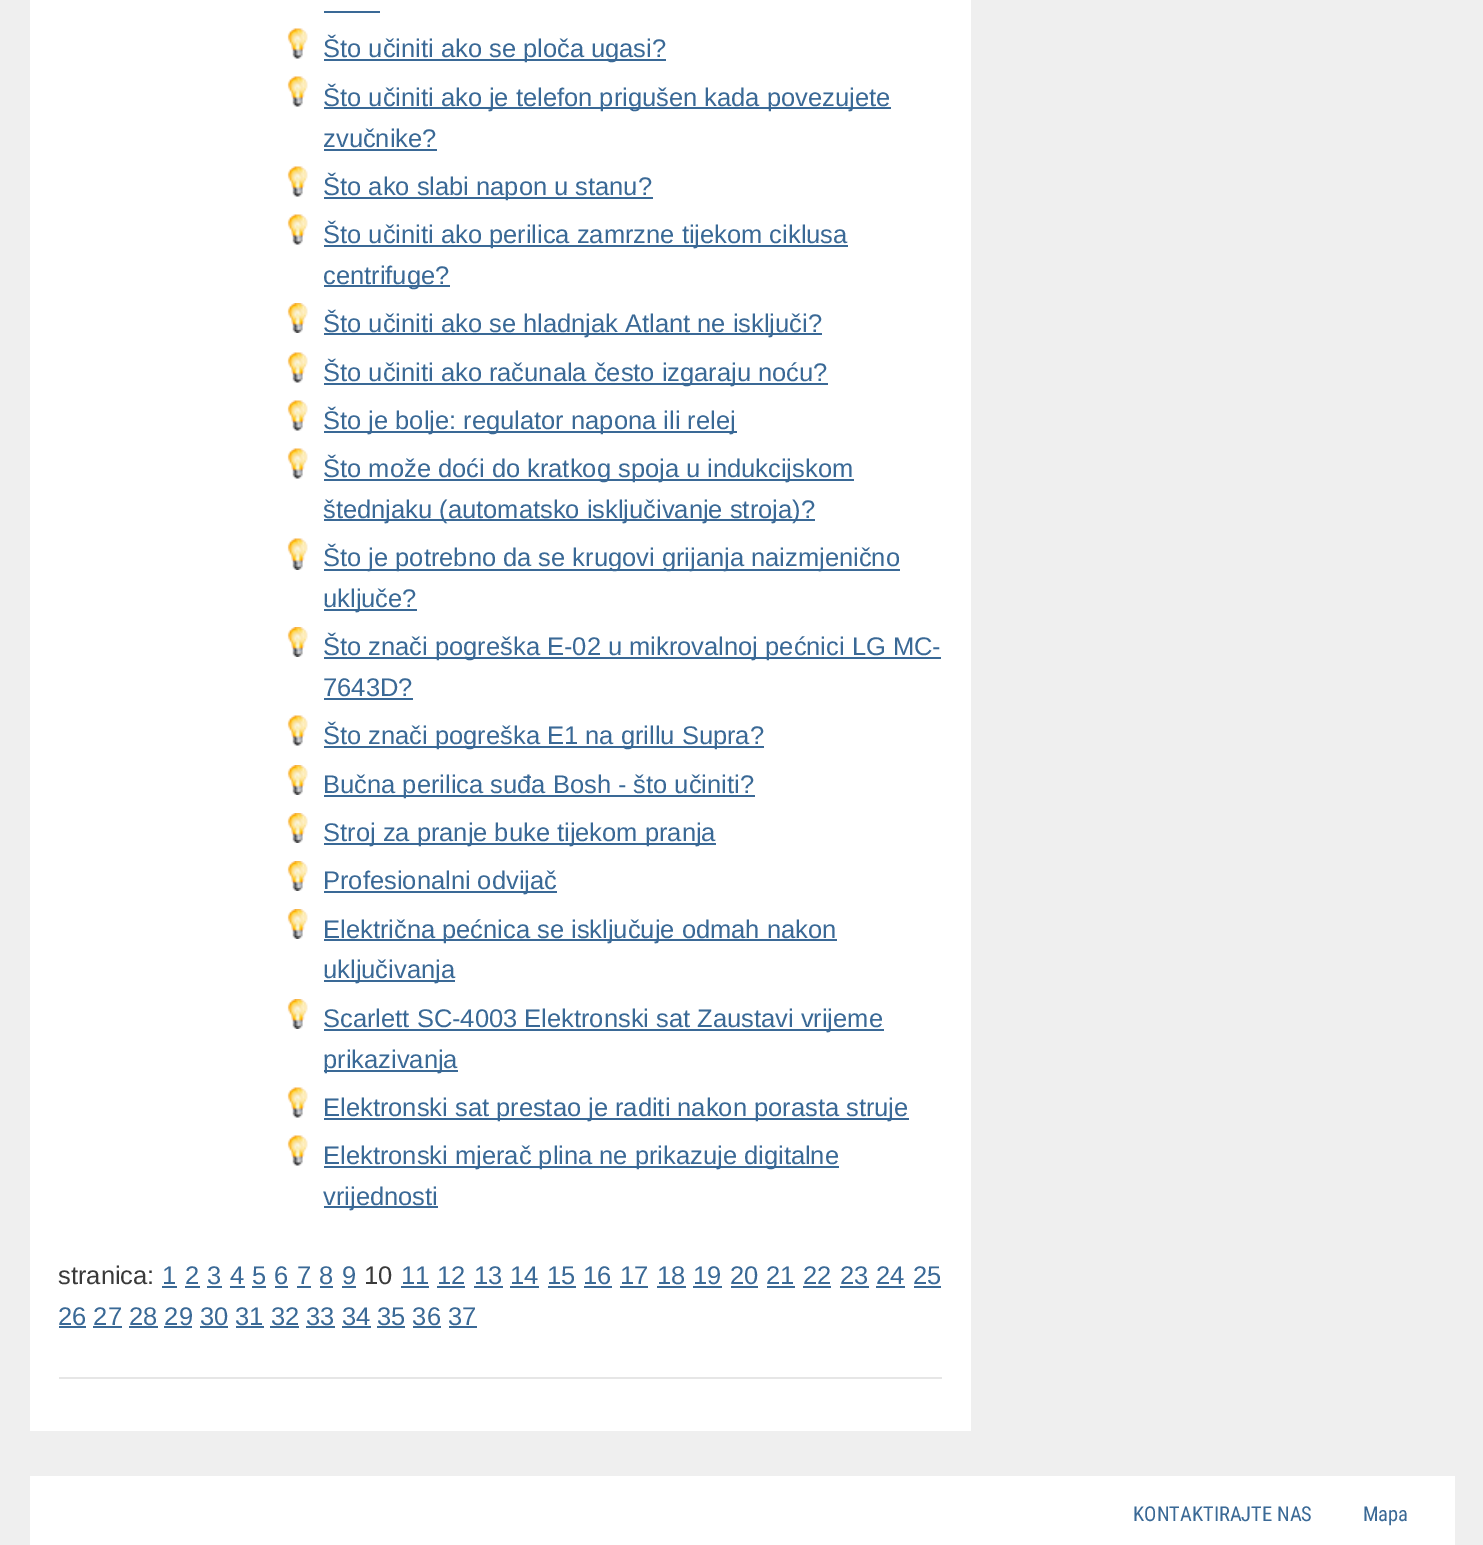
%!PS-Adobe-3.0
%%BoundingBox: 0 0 1483 1545
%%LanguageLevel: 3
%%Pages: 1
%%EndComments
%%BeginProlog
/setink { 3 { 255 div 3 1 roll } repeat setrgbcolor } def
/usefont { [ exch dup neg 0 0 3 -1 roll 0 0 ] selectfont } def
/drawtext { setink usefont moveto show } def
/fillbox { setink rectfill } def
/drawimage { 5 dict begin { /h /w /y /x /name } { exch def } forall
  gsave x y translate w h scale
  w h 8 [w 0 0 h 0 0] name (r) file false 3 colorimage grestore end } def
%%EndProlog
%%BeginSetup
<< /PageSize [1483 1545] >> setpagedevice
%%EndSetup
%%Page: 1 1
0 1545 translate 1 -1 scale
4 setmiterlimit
0 0 1483 1545 239 239 239 fillbox
30 0 941 1431 255 255 255 fillbox
59 1377 883 2 230 230 230 fillbox
324 11 56 2 58 105 150 fillbox
(assets/img1.rgb) 287 28 21 31 drawimage
324 59 342 2 58 105 150 fillbox
(Što učiniti ako se ploča ugasi?) 323 57 /LiberationSans-Regular 25.5 58 105 150 drawtext
(assets/img1.rgb) 287 76 21 31 drawimage
324 107 567 2 58 105 150 fillbox
(Što učiniti ako je telefon prigušen kada povezujete) 323 106 /LiberationSans-Regular 25.5 58 105 150 drawtext
(zvučnike?) 323 147 /LiberationSans-Regular 25.5 58 105 150 drawtext
324 149 113 2 58 105 150 fillbox
(assets/img1.rgb) 287 166 21 31 drawimage
324 197 329 2 58 105 150 fillbox
(Što ako slabi napon u stanu?) 323 195 /LiberationSans-Regular 25.5 58 105 150 drawtext
(assets/img1.rgb) 287 214 21 31 drawimage
324 245 524 2 58 105 150 fillbox
(Što učiniti ako perilica zamrzne tijekom ciklusa) 323 243 /LiberationSans-Regular 25.5 58 105 150 drawtext
324 285 126 2 58 105 150 fillbox
(centrifuge?) 323 284 /LiberationSans-Regular 25.5 58 105 150 drawtext
(assets/img2.rgb) 287 303 21 30 drawimage
324 333 498 2 58 105 150 fillbox
(Što učiniti ako se hladnjak Atlant ne isključi?) 323 332 /LiberationSans-Regular 25.5 58 105 150 drawtext
(assets/img1.rgb) 287 352 21 31 drawimage
324 383 504 2 58 105 150 fillbox
(Što učiniti ako računala često izgaraju noću?) 323 381 /LiberationSans-Regular 25.5 58 105 150 drawtext
(assets/img1.rgb) 287 400 21 31 drawimage
324 431 413 2 58 105 150 fillbox
(Što je bolje: regulator napona ili relej) 323 429 /LiberationSans-Regular 25.5 58 105 150 drawtext
(assets/img1.rgb) 287 448 21 31 drawimage
324 479 530 2 58 105 150 fillbox
(Što može doći do kratkog spoja u indukcijskom) 323 477 /LiberationSans-Regular 25.5 58 105 150 drawtext
324 519 491 2 58 105 150 fillbox
(štednjaku \(automatsko isključivanje stroja\)?) 323 518 /LiberationSans-Regular 25.5 58 105 150 drawtext
(assets/img3.rgb) 287 538 21 32 drawimage
324 569 576 2 58 105 150 fillbox
(Što je potrebno da se krugovi grijanja naizmjenično) 323 566 /LiberationSans-Regular 25.5 58 105 150 drawtext
324 609 93 2 58 105 150 fillbox
(uključe?) 323 607 /LiberationSans-Regular 25.5 58 105 150 drawtext
(assets/img2.rgb) 287 627 21 30 drawimage
324 657 617 2 58 105 150 fillbox
(Što znači pogreška E-02 u mikrovalnoj pećnici LG MC-) 323 655 /LiberationSans-Regular 25.5 58 105 150 drawtext
(7643D?) 323 696 /LiberationSans-Regular 25.5 58 105 150 drawtext
324 698 89 2 58 105 150 fillbox
(assets/img1.rgb) 287 715 21 31 drawimage
324 746 440 2 58 105 150 fillbox
(Što znači pogreška E1 na grillu Supra?) 323 744 /LiberationSans-Regular 25.5 58 105 150 drawtext
(assets/img2.rgb) 287 765 21 30 drawimage
324 795 431 2 58 105 150 fillbox
(Bučna perilica suđa Bosh - što učiniti?) 323 793 /LiberationSans-Regular 25.5 58 105 150 drawtext
(assets/img2.rgb) 287 813 21 30 drawimage
324 843 392 2 58 105 150 fillbox
(Stroj za pranje buke tijekom pranja) 323 841 /LiberationSans-Regular 25.5 58 105 150 drawtext
(assets/img2.rgb) 287 861 21 30 drawimage
324 891 233 2 58 105 150 fillbox
(Profesionalni odvijač) 323 889 /LiberationSans-Regular 25.5 58 105 150 drawtext
(assets/img2.rgb) 287 909 21 30 drawimage
324 939 513 2 58 105 150 fillbox
(Električna pećnica se isključuje odmah nakon) 323 938 /LiberationSans-Regular 25.5 58 105 150 drawtext
324 980 131 2 58 105 150 fillbox
(uključivanja) 323 978 /LiberationSans-Regular 25.5 58 105 150 drawtext
(assets/img2.rgb) 287 999 21 30 drawimage
324 1029 560 2 58 105 150 fillbox
(Scarlett SC-4003 Elektronski sat Zaustavi vrijeme) 323 1027 /LiberationSans-Regular 25.5 58 105 150 drawtext
324 1070 134 2 58 105 150 fillbox
(prikazivanja) 323 1068 /LiberationSans-Regular 25.5 58 105 150 drawtext
(assets/img1.rgb) 287 1087 21 31 drawimage
324 1118 585 2 58 105 150 fillbox
(Elektronski sat prestao je raditi nakon porasta struje) 323 1116 /LiberationSans-Regular 25.5 58 105 150 drawtext
(assets/img1.rgb) 287 1135 21 31 drawimage
324 1166 515 2 58 105 150 fillbox
(Elektronski mjerač plina ne prikazuje digitalne) 323 1164 /LiberationSans-Regular 25.5 58 105 150 drawtext
324 1206 114 2 58 105 150 fillbox
(vrijednosti) 323 1205 /LiberationSans-Regular 25.5 58 105 150 drawtext
(stranica:) 58 1284 /LiberationSans-Regular 25.5 58 58 58 drawtext
(1) 162 1284 /LiberationSans-Regular 25.5 58 105 150 drawtext
162 1286 15 2 58 105 150 fillbox
(2) 185 1284 /LiberationSans-Regular 25.5 58 105 150 drawtext
185 1286 15 2 58 105 150 fillbox
(3) 207 1284 /LiberationSans-Regular 25.5 58 105 150 drawtext
207 1286 15 2 58 105 150 fillbox
(4) 230 1284 /LiberationSans-Regular 25.5 58 105 150 drawtext
230 1286 15 2 58 105 150 fillbox
(5) 252 1284 /LiberationSans-Regular 25.5 58 105 150 drawtext
252 1286 14 2 58 105 150 fillbox
(6) 274 1284 /LiberationSans-Regular 25.5 58 105 150 drawtext
275 1286 13 2 58 105 150 fillbox
(7) 297 1284 /LiberationSans-Regular 25.5 58 105 150 drawtext
297 1286 14 2 58 105 150 fillbox
(8) 319 1284 /LiberationSans-Regular 25.5 58 105 150 drawtext
320 1286 13 2 58 105 150 fillbox
(9) 342 1284 /LiberationSans-Regular 25.5 58 105 150 drawtext
342 1286 14 2 58 105 150 fillbox
(10) 364 1284 /LiberationSans-Regular 25.5 58 58 58 drawtext
(11) 401 1284 /LiberationSans-Regular 25.5 58 105 150 drawtext
401 1286 28 2 58 105 150 fillbox
(12) 437 1284 /LiberationSans-Regular 25.5 58 105 150 drawtext
437 1286 28 2 58 105 150 fillbox
(13) 474 1284 /LiberationSans-Regular 25.5 58 105 150 drawtext
474 1286 29 2 58 105 150 fillbox
(14) 510 1284 /LiberationSans-Regular 25.5 58 105 150 drawtext
510 1286 29 2 58 105 150 fillbox
(15) 547 1284 /LiberationSans-Regular 25.5 58 105 150 drawtext
548 1286 28 2 58 105 150 fillbox
(16) 583 1284 /LiberationSans-Regular 25.5 58 105 150 drawtext
584 1286 28 2 58 105 150 fillbox
(17) 620 1284 /LiberationSans-Regular 25.5 58 105 150 drawtext
620 1286 28 2 58 105 150 fillbox
(18) 657 1284 /LiberationSans-Regular 25.5 58 105 150 drawtext
657 1286 29 2 58 105 150 fillbox
(19) 693 1284 /LiberationSans-Regular 25.5 58 105 150 drawtext
693 1286 29 2 58 105 150 fillbox
(20) 730 1284 /LiberationSans-Regular 25.5 58 105 150 drawtext
731 1286 27 2 58 105 150 fillbox
(21) 766 1284 /LiberationSans-Regular 25.5 58 105 150 drawtext
767 1286 28 2 58 105 150 fillbox
(22) 803 1284 /LiberationSans-Regular 25.5 58 105 150 drawtext
803 1286 28 2 58 105 150 fillbox
(23) 840 1284 /LiberationSans-Regular 25.5 58 105 150 drawtext
840 1286 29 2 58 105 150 fillbox
(24) 876 1284 /LiberationSans-Regular 25.5 58 105 150 drawtext
876 1286 29 2 58 105 150 fillbox
(25) 913 1284 /LiberationSans-Regular 25.5 58 105 150 drawtext
914 1286 27 2 58 105 150 fillbox
(26 27 28 29 30 31 32 33 34 35 36 37) 58 1325 /LiberationSans-Regular 25.5 58 105 150 drawtext
59 1326 27 2 58 105 150 fillbox
93 1326 29 2 58 105 150 fillbox
129 1326 29 2 58 105 150 fillbox
164 1326 28 2 58 105 150 fillbox
200 1326 28 2 58 105 150 fillbox
236 1326 28 2 58 105 150 fillbox
270 1326 29 2 58 105 150 fillbox
306 1326 29 2 58 105 150 fillbox
342 1326 29 2 58 105 150 fillbox
377 1326 28 2 58 105 150 fillbox
413 1326 28 2 58 105 150 fillbox
449 1326 28 2 58 105 150 fillbox
30 1476 1425 69 255 255 255 fillbox
(KONTAKTIRAJTE NAS) 1133 1521 /RobotoCondensed-Regular 20.5 58 105 150 drawtext
(Mapa) 1363 1521 /RobotoCondensed-Regular 20.5 58 105 150 drawtext
showpage
%%EOF
